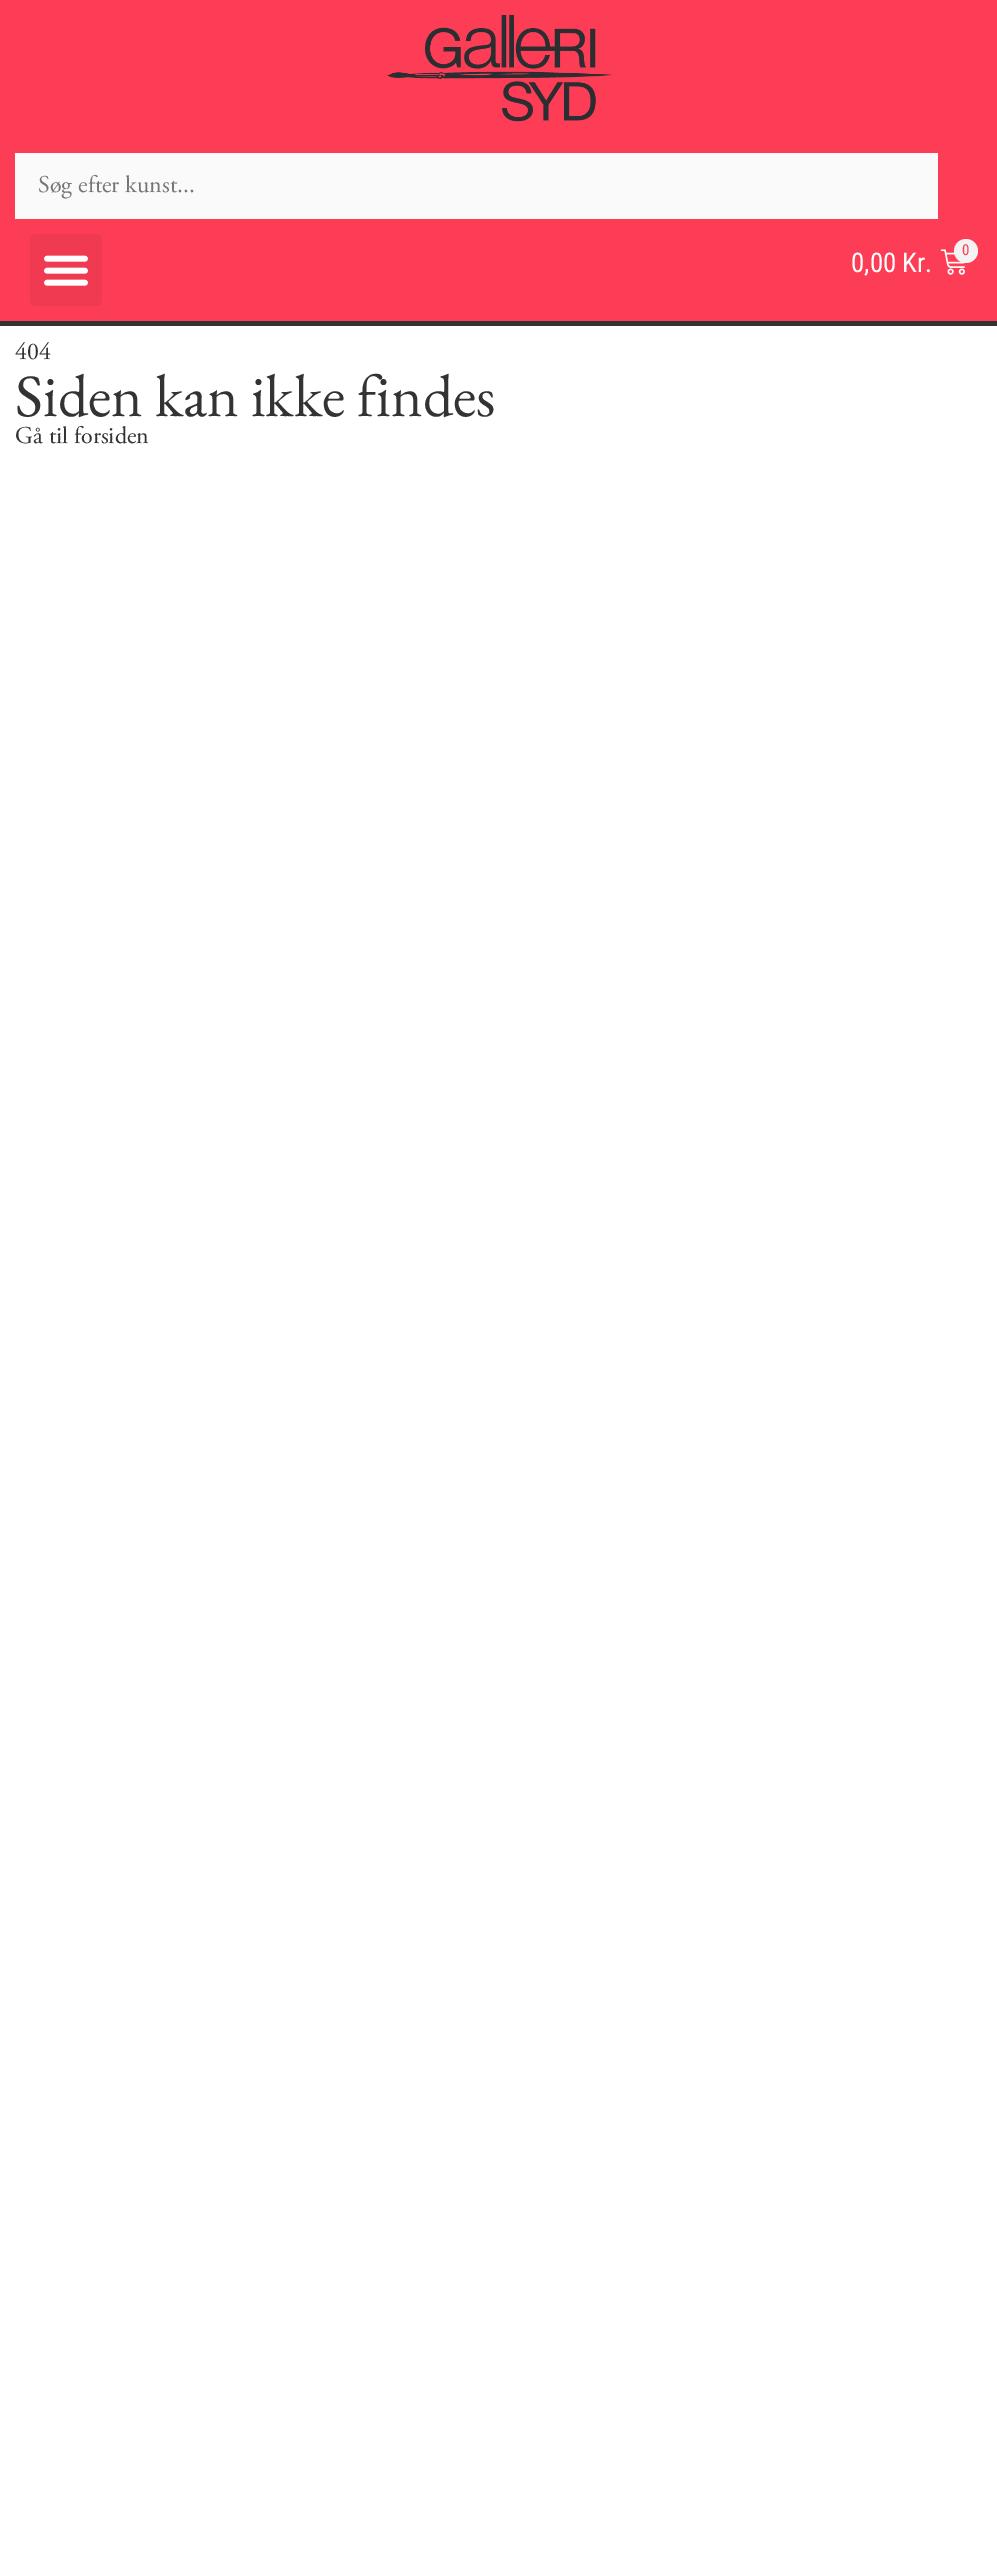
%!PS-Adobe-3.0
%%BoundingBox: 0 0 997 2564
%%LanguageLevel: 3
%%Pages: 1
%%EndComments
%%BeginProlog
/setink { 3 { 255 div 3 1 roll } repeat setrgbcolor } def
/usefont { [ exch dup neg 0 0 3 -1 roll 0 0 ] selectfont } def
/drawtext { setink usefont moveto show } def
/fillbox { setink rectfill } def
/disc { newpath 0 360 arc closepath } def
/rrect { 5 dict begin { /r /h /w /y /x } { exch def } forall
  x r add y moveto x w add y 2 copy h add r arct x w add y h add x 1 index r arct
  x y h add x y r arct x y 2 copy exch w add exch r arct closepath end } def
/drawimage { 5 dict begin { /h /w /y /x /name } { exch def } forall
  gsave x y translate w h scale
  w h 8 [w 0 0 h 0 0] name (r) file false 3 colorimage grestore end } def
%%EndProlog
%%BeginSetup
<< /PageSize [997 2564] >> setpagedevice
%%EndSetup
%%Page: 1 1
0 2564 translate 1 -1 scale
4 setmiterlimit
0 0 997 2564 255 255 255 fillbox
0 0 997 321 252 61 85 fillbox
0 321 997 5 51 51 51 fillbox
(assets/img1.rgb) 387 15 225 107 drawimage
15 153 923 66 250 250 250 fillbox
(Søg efter kunst...) 38 192 /AdobeGaramond-Regular 24 117 117 117 drawtext
239 58 81 setink
30 234 72 72 5 rrect fill
(assets/img2.rgb) 44 255 44 31 drawimage
(assets/img3.rgb) 940 249 26 26 drawimage
243 243 243 setink
966 251 12 disc fill
(0) 962 255 /RobotoCondensed-Regular 15 252 61 85 drawtext
(0,00 Kr.) 851 272 /RobotoCondensed-Regular 27 255 255 255 drawtext
(404) 15 359 /AdobeGaramond-Regular 24 51 51 51 drawtext
(Siden kan ikke findes) 15 416 /EBGaramond-Regular 60 51 51 51 drawtext
(Gå til forsiden) 15 443 /AdobeGaramond-Regular 24 51 51 51 drawtext
showpage
%%EOF
